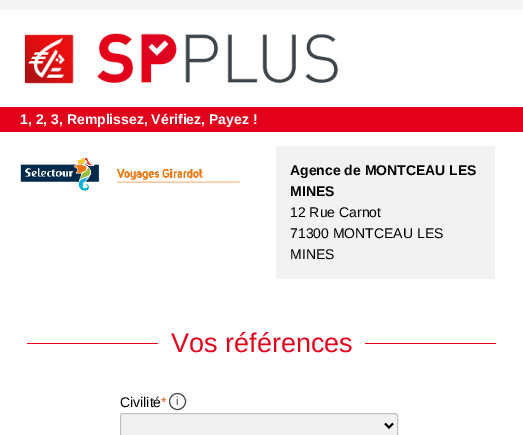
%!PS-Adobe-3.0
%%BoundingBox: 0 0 523 435
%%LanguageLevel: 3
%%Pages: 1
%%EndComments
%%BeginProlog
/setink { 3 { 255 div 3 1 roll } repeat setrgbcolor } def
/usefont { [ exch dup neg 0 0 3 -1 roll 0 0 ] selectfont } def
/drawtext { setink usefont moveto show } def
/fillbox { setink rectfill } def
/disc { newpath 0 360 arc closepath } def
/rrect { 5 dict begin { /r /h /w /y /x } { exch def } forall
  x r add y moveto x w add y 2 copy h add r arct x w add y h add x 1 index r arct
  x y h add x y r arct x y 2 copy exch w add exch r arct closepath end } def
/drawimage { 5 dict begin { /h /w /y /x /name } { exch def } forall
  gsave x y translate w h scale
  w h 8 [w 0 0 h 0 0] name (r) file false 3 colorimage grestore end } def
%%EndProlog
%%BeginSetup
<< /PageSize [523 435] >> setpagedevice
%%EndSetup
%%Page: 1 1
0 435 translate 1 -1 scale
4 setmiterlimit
0 0 523 435 255 255 255 fillbox
0 0 523 10 245 245 245 fillbox
(assets/img1.rgb) 24 33 315 51 drawimage
0 107 523 25 226 0 26 fillbox
(1, 2, 3, Remplissez, Vérifiez, Payez !) 20 124 /LiberationSans-Bold 14 255 255 255 drawtext
(assets/img2.rgb) 20 157 221 34 drawimage
276 146 219 133 242 242 242 fillbox
(Agence de MONTCEAU LES) 290 175 /LiberationSans-Bold 14 0 0 0 drawtext
(MINES) 290 196 /LiberationSans-Bold 14 0 0 0 drawtext
(12 Rue Carnot) 290 217 /LiberationSans-Regular 14 0 0 0 drawtext
(71300 MONTCEAU LES) 290 238 /LiberationSans-Regular 14 0 0 0 drawtext
(MINES) 290 259 /LiberationSans-Regular 14 0 0 0 drawtext
27 343 131 1 226 0 26 fillbox
(Vos références) 171 352 /LiberationSans-Regular 27 226 0 26 drawtext
365 343 131 1 226 0 26 fillbox
(Civilité) 120 407 /LiberationSans-Regular 14 0 0 0 drawtext
(*) 161 407 /LiberationSans-Regular 14 231 94 35 drawtext
70 70 70 setink
177.5 401.5 8 disc stroke
(i) 176 405 /LiberationSans-Regular 12 66 66 66 drawtext
241 241 241 setink
120.5 413.5 277 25 2.5 rrect gsave fill grestore
193 193 193 setink
stroke
0 0 0 setink
2 setlinewidth
385 423.5 moveto 389 427.5 lineto 393 423.5 lineto stroke
showpage
%%EOF
